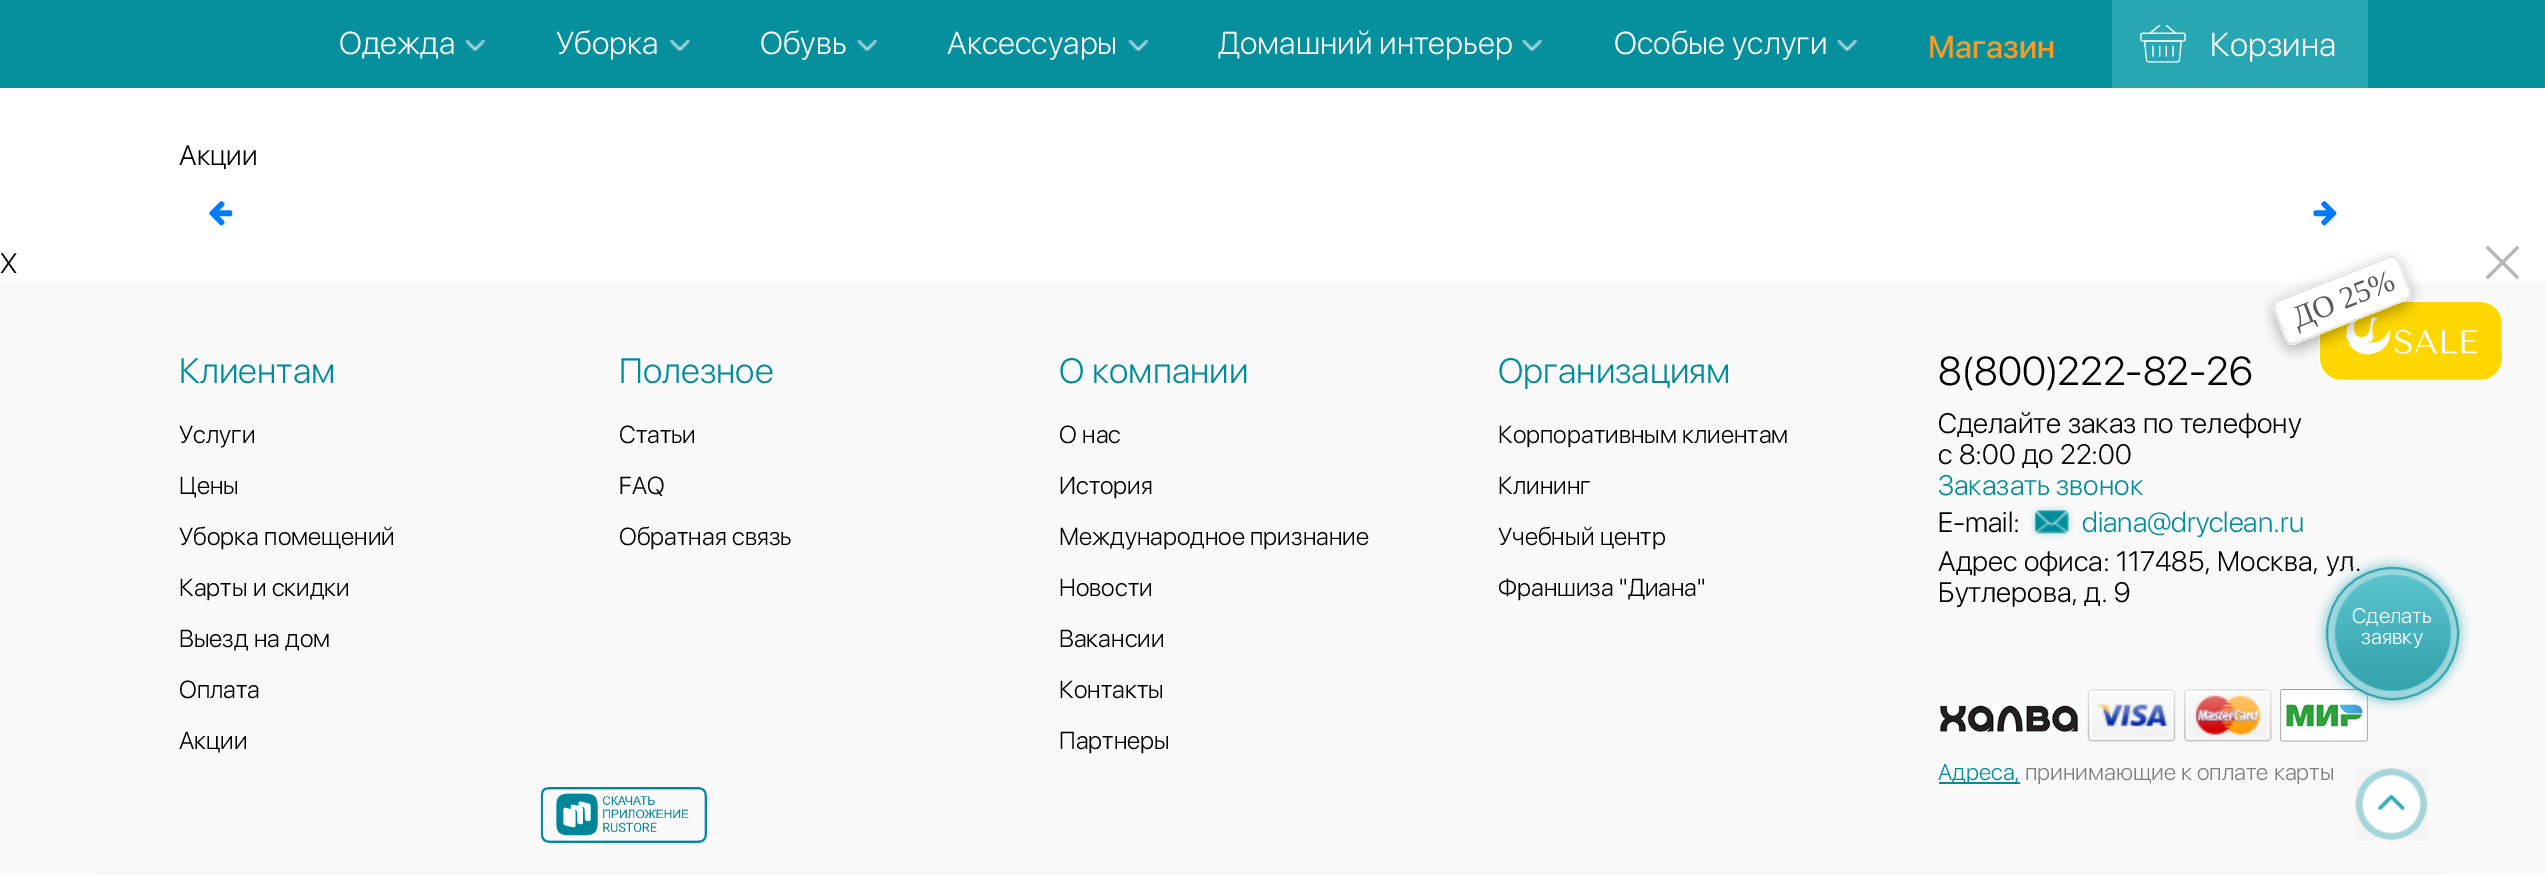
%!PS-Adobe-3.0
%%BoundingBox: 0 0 2545 875
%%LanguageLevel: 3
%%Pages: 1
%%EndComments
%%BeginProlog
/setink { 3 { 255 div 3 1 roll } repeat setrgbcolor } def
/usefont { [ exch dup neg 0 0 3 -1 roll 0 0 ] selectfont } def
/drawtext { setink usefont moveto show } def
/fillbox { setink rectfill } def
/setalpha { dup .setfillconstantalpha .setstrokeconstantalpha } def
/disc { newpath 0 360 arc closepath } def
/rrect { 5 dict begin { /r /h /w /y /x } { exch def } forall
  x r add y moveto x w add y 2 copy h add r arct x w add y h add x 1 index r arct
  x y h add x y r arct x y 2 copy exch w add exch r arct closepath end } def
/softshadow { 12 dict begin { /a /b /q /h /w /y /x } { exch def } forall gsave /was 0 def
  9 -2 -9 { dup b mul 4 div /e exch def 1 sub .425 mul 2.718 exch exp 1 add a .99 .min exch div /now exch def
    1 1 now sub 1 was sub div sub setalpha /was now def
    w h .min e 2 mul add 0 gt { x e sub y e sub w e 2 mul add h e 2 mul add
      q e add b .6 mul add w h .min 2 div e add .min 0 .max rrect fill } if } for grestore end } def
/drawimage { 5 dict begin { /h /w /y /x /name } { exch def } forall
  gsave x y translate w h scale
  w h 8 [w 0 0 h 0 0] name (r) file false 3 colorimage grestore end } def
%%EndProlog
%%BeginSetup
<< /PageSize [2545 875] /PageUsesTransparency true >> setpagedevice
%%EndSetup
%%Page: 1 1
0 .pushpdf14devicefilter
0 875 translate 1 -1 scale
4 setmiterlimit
0 0 2545 875 255 255 255 fillbox
0 0 2545 88 6 143 156 fillbox
(Одежда) 339 54 /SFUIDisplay-Light 31.5 255 255 255 drawtext
(assets/img1.rgb) 466 40 20 11 drawimage
(Уборка) 556 54 /SFUIDisplay-Light 31.5 255 255 255 drawtext
(assets/img2.rgb) 669 40 21 11 drawimage
(Обувь) 760 54 /SFUIDisplay-Light 31.5 255 255 255 drawtext
(assets/img3.rgb) 857 40 21 11 drawimage
(Аксессуары) 947 54 /SFUIDisplay-Light 31.5 255 255 255 drawtext
(assets/img4.rgb) 1128 40 21 11 drawimage
(Домашний интерьер) 1218 54 /SFUIDisplay-Light 31.5 255 255 255 drawtext
(assets/img3.rgb) 1522 40 21 11 drawimage
(Особые услуги) 1614 54 /SFUIDisplay-Light 31.5 255 255 255 drawtext
(assets/img5.rgb) 1837 40 21 11 drawimage
(Магазин) 1928 58 /SFUIDisplay-Medium 31.5 245 155 38 drawtext
2112 0 256 88 40 166 178 fillbox
(assets/img6.rgb) 2140 25 46 38 drawimage
(Корзина) 2210 56 /SFUIDisplay-Light 33 255 255 255 drawtext
(Акции) 179 165 /SFUIDisplay-Light 28 0 0 0 drawtext
(assets/img7.rgb) 209 201 24 25 drawimage
(assets/img8.rgb) 2313 201 24 25 drawimage
0 282 2545 593 249 249 249 fillbox
(assets/img17.rgb) 2280 689 88 53 drawimage
gsave
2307 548 moveto 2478 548 lineto 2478 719 lineto 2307 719 lineto closepath 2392.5 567 moveto 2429 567 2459 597 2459 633.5 curveto 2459 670 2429 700 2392.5 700 curveto 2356 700 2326 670 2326 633.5 curveto 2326 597 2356 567 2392.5 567 curveto closepath eoclip newpath
52 164 174 setink
2326 567 133 133 66.5 6 0.77 softshadow
grestore
(Адрес офиса: 117485, Москва, ул.) 1938 571 /SFUIDisplay-Light 28 0 0 0 drawtext
(assets/img9.rgb) 2326 567 133 132 drawimage
(Сделать) 2352 623 /SFUIDisplay-Light 21 255 255 255 drawtext
(заявку) 2361 644 /SFUIDisplay-Light 21 255 255 255 drawtext
54 165 175 setink
2 setlinewidth
2392.5 633.5 65.5 disc stroke
(assets/img10.rgb) 2355 768 73 73 drawimage
(X) 0 273 /SFUIDisplay-Light 28 0 0 0 drawtext
(assets/img12.rgb) 2264 252 239 129 drawimage
(assets/img11.rgb) 2485 245 35 35 drawimage
(Клиентам) 179 383 /SFUIDisplay-Light 35 0 140 154 drawtext
(Услуги) 179 443 /SFUIDisplay-Light 24.5 0 0 0 drawtext
(Цены) 179 494 /SFUIDisplay-Light 24.5 0 0 0 drawtext
(Уборка помещений) 179 545 /SFUIDisplay-Light 24.5 0 0 0 drawtext
(Карты и скидки) 179 596 /SFUIDisplay-Light 24.5 0 0 0 drawtext
(Выезд на дом) 179 647 /SFUIDisplay-Light 24.5 0 0 0 drawtext
(Оплата) 179 698 /SFUIDisplay-Light 24.5 0 0 0 drawtext
(Акции) 179 749 /SFUIDisplay-Light 24.5 0 0 0 drawtext
(Полезное) 619 383 /SFUIDisplay-Light 35 0 140 154 drawtext
(Статьи) 619 443 /SFUIDisplay-Light 24.5 0 0 0 drawtext
(FAQ) 619 494 /SFUIDisplay-Light 24.5 0 0 0 drawtext
(Обратная связь) 619 545 /SFUIDisplay-Light 24.5 0 0 0 drawtext
(О компании) 1059 383 /SFUIDisplay-Light 35 0 140 154 drawtext
(О нас) 1059 443 /SFUIDisplay-Light 24.5 0 0 0 drawtext
(История) 1059 494 /SFUIDisplay-Light 24.5 0 0 0 drawtext
(Международное признание) 1059 545 /SFUIDisplay-Light 24.5 0 0 0 drawtext
(Новости) 1059 596 /SFUIDisplay-Light 24.5 0 0 0 drawtext
(Вакансии) 1059 647 /SFUIDisplay-Light 24.5 0 0 0 drawtext
(Контакты) 1059 698 /SFUIDisplay-Light 24.5 0 0 0 drawtext
(Партнеры) 1059 749 /SFUIDisplay-Light 24.5 0 0 0 drawtext
(Организациям) 1498 383 /SFUIDisplay-Light 35 0 140 154 drawtext
(Корпоративным клиентам) 1498 443 /SFUIDisplay-Light 24.5 0 0 0 drawtext
(Клининг) 1498 494 /SFUIDisplay-Light 24.5 0 0 0 drawtext
(Учебный центр) 1498 545 /SFUIDisplay-Light 24.5 0 0 0 drawtext
(Франшиза "Диана") 1498 596 /SFUIDisplay-Light 24.5 0 0 0 drawtext
(8\(800\)222-82-26) 1938 385 /SFUIDisplay-Light 40.25 0 0 0 drawtext
(Cделайте заказ по телефону) 1938 433 /SFUIDisplay-Light 28 0 0 0 drawtext
(с 8:00 до 22:00) 1938 464 /SFUIDisplay-Light 28 0 0 0 drawtext
(Заказать звонок) 1938 495 /SFUIDisplay-Light 28 0 140 154 drawtext
(E-mail:) 1938 532 /SFUIDisplay-Light 28 0 0 0 drawtext
(assets/img13.rgb) 2030 505 44 34 drawimage
(diana@dryclean.ru) 2082 532 /SFUIDisplay-Light 28 0 140 154 drawtext
(Бутлерова, д. 9) 1938 602 /SFUIDisplay-Light 28 0 0 0 drawtext
(assets/img14.rgb) 1939 705 140 28 drawimage
(assets/img15.rgb) 2087 689 89 53 drawimage
(assets/img16.rgb) 2184 689 88 53 drawimage
1939 782 81 2 0 140 154 fillbox
(Адреса,) 1938 780 /SFUIDisplay-Light 22.75 0 140 154 drawtext
(принимающие к оплате карты) 2025 780 /SFUIDisplay-Light 22.75 127 127 127 drawtext
(assets/img18.rgb) 540 787 167 56 drawimage
102 873 2345 2 246 246 246 fillbox
.poppdf14devicefilter showpage
%%EOF
